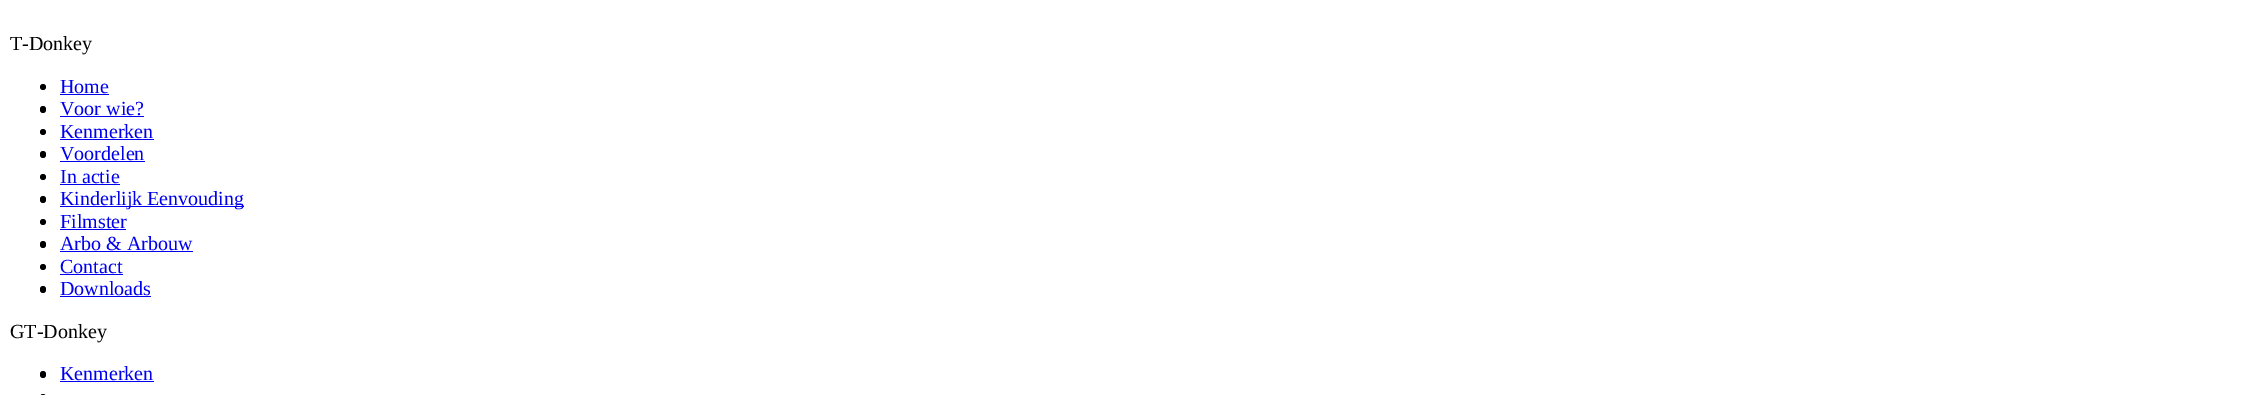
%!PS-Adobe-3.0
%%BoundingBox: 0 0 2247 395
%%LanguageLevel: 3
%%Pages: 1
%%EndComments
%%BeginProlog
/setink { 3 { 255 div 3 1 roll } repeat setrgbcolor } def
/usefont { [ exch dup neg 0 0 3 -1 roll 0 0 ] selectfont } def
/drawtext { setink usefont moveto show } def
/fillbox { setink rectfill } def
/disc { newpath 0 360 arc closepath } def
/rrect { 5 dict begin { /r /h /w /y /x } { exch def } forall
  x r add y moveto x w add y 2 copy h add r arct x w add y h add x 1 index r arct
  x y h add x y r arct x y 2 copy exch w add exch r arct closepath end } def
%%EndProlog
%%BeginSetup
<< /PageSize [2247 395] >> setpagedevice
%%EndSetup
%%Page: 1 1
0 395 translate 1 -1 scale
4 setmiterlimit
0 0 2247 395 255 255 255 fillbox
(T-Donkey) 10 50 /LiberationSerif-Regular 20 0 0 0 drawtext
43 87 3 disc fill
(Home) 60 93 /LiberationSerif-Regular 20 0 0 238 drawtext
60 94 49 1 0 0 238 fillbox
0 0 0 setink
40 106 6 7 3 rrect fill
(Voor wie?) 60 115 /LiberationSerif-Regular 20 0 0 238 drawtext
60 116 84 1 0 0 238 fillbox
0 0 0 setink
43 132 3 disc fill
(Kenmerken) 60 138 /LiberationSerif-Regular 20 0 0 238 drawtext
60 139 94 1 0 0 238 fillbox
0 0 0 setink
40 151 6 7 3 rrect fill
(Voordelen) 60 160 /LiberationSerif-Regular 20 0 0 238 drawtext
60 161 85 1 0 0 238 fillbox
0 0 0 setink
43 177 3 disc fill
(In actie) 60 183 /LiberationSerif-Regular 20 0 0 238 drawtext
60 184 60 1 0 0 238 fillbox
0 0 0 setink
40 196 6 7 3 rrect fill
60 206 184 1 0 0 238 fillbox
(Kinderlijk Eenvouding) 60 205 /LiberationSerif-Regular 20 0 0 238 drawtext
0 0 0 setink
43 222 3 disc fill
(Filmster) 60 228 /LiberationSerif-Regular 20 0 0 238 drawtext
60 229 66 1 0 0 238 fillbox
0 0 0 setink
40 241 6 7 3 rrect fill
(Arbo & Arbouw) 60 250 /LiberationSerif-Regular 20 0 0 238 drawtext
60 251 133 1 0 0 238 fillbox
0 0 0 setink
43 267 3 disc fill
(Contact) 60 273 /LiberationSerif-Regular 20 0 0 238 drawtext
60 274 63 1 0 0 238 fillbox
0 0 0 setink
40 286 6 7 3 rrect fill
(Downloads) 60 295 /LiberationSerif-Regular 20 0 0 238 drawtext
60 296 91 1 0 0 238 fillbox
(GT-Donkey) 10 338 /LiberationSerif-Regular 20 0 0 0 drawtext
40 371 6 7 3 rrect fill
(Kenmerken) 60 380 /LiberationSerif-Regular 20 0 0 238 drawtext
60 381 94 1 0 0 238 fillbox
0 0 0 setink
40 394 6 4 3 rrect fill
showpage
%%EOF
